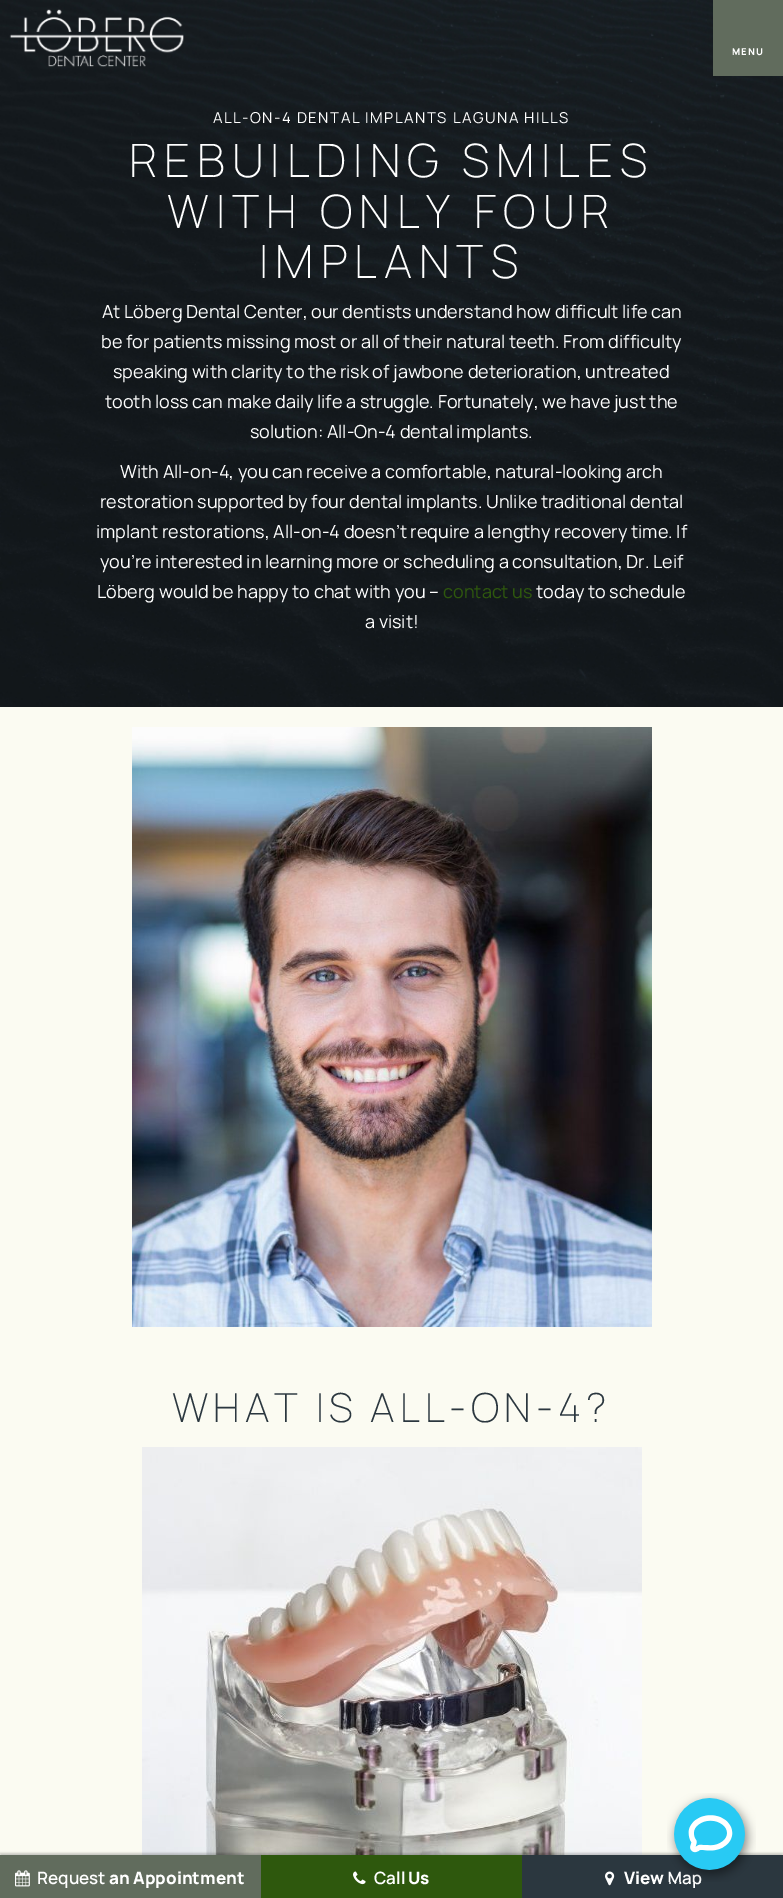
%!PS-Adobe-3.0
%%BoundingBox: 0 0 783 1898
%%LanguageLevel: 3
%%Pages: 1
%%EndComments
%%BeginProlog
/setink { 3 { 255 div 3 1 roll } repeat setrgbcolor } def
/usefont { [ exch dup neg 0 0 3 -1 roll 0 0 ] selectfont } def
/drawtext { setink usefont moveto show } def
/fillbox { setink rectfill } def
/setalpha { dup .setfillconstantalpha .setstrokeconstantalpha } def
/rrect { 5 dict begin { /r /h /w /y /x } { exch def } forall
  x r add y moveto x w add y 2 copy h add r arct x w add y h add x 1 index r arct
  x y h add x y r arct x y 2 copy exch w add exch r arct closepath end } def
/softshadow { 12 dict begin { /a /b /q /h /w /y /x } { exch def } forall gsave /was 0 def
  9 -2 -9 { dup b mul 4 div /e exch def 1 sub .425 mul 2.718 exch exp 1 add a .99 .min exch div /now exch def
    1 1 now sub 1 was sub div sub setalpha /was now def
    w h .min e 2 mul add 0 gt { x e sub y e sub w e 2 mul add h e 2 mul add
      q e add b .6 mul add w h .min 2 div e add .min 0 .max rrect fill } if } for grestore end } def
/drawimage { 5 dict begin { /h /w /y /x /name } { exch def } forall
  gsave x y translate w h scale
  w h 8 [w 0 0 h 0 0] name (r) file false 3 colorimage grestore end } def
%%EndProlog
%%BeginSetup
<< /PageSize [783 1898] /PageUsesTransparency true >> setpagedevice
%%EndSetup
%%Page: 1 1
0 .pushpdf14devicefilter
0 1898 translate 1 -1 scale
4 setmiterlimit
0 0 783 1898 251 251 242 fillbox
(assets/img2.rgb) 0 0 783 707 drawimage
(assets/img1.rgb) 9 9 175 58 drawimage
713 0 70 76 97 108 93 fillbox
/Manrope-ExtraBold 9.5 usefont
255 255 255 setink
732 55 moveto 1 0 (MENU) ashow
/Manrope-Regular 15 usefont
213 123 moveto 1.5 0 (ALL-ON-4 DENTAL IMPLANTS LAGUNA HILLS) ashow
/Manrope-ExtraLight 46 usefont
129 177 moveto 7 0 (REBUILDING SMILES) ashow
167 228 moveto 7 0 (WITH ONLY FOUR) ashow
259 278 moveto 7 0 (IMPLANTS) ashow
(At Löberg Dental Center, our dentists understand how difficult life can) 102 318 /Manrope-Regular 18 255 255 255 drawtext
(be for patients missing most or all of their natural teeth. From difficulty) 101 348 /Manrope-Regular 18 255 255 255 drawtext
(speaking with clarity to the risk of jawbone deterioration, untreated) 113 378 /Manrope-Regular 18 255 255 255 drawtext
(tooth loss can make daily life a struggle. Fortunately, we have just the) 105 408 /Manrope-Regular 18 255 255 255 drawtext
(solution: All-On-4 dental implants.) 250 438 /Manrope-Regular 18 255 255 255 drawtext
(With All-on-4, you can receive a comfortable, natural-looking arch) 120 478 /Manrope-Regular 18 255 255 255 drawtext
(restoration supported by four dental implants. Unlike traditional dental) 100 508 /Manrope-Regular 18 255 255 255 drawtext
(implant restorations, All-on-4 doesn’t require a lengthy recovery time. If) 96 538 /Manrope-Regular 18 255 255 255 drawtext
(you’re interested in learning more or scheduling a consultation, Dr. Leif) 100 568 /Manrope-Regular 18 255 255 255 drawtext
(Löberg would be happy to chat with you –) 97 598 /Manrope-Regular 18 255 255 255 drawtext
(contact us) 443 598 /Manrope-Regular 18 46 88 13 drawtext
(today to schedule) 536 598 /Manrope-Regular 18 255 255 255 drawtext
(a visit!) 365 628 /Manrope-Regular 18 255 255 255 drawtext
(assets/img3.rgb) 132 727 520 600 drawimage
/Manrope-ExtraLight 40 usefont
43 55 63 setink
172 1422 moveto 5 0 (WHAT IS ALL-ON-4?) ashow
(assets/img4.rgb) 142 1447 500 408 drawimage
0 0 0 setink
0 1853 783 43 0 1 0.2 softshadow
0 1855 261 43 97 108 93 fillbox
(assets/img5.rgb) 15 1870 15 17 drawimage
(Request) 37 1884 /Manrope-SemiBold 17 255 255 255 drawtext
(an Appointment) 109 1884 /Manrope-ExtraBold 17 255 255 255 drawtext
261 1855 261 43 46 88 13 fillbox
(assets/img6.rgb) 353 1871 13 14 drawimage
(Call) 374 1884 /Manrope-SemiBold 17 255 255 255 drawtext
(Us) 408 1884 /Manrope-ExtraBold 17 255 255 255 drawtext
522 1855 261 43 43 55 63 fillbox
(assets/img7.rgb) 605 1871 10 15 drawimage
(View) 624 1884 /Manrope-ExtraBold 17 255 255 255 drawtext
(Map) 668 1884 /Manrope-SemiBold 17 255 255 255 drawtext
(assets/img8.rgb) 667 1793 89 89 drawimage
.poppdf14devicefilter showpage
%%EOF
